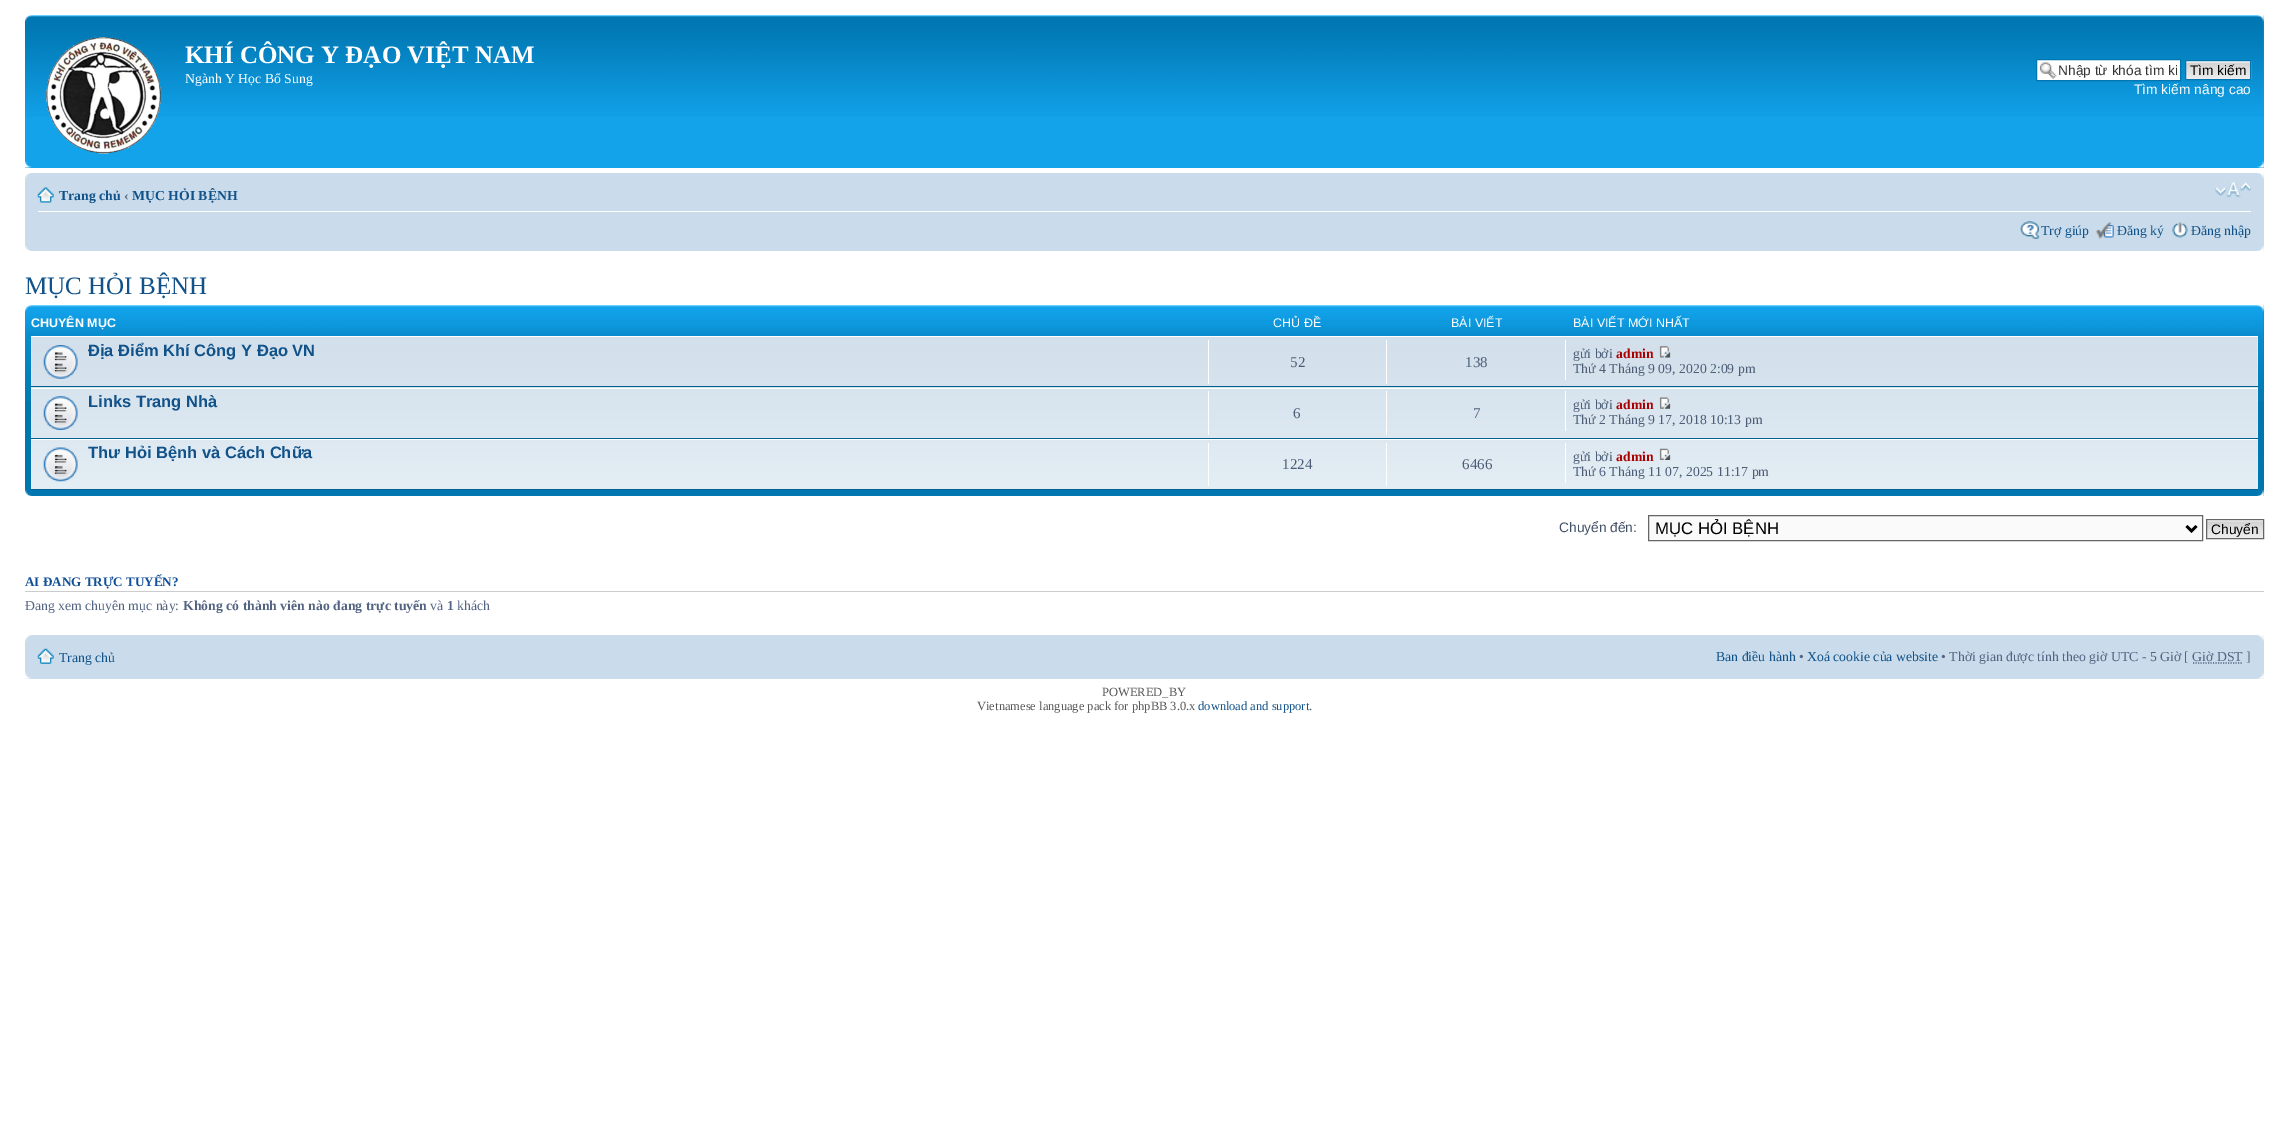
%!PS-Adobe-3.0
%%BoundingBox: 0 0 2288 1127
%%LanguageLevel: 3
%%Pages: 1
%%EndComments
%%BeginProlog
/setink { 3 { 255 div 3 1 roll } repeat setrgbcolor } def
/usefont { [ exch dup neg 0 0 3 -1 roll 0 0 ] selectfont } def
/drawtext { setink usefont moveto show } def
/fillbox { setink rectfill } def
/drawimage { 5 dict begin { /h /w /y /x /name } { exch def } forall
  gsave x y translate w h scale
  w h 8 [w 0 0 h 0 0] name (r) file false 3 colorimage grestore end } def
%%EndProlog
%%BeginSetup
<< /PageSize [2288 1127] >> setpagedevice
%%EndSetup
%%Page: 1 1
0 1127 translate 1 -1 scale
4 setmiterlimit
0 0 2288 1127 255 255 255 fillbox
25 15 2239 153 18 163 235 fillbox
(assets/img1.rgb) 25 15 2239 102 drawimage
(assets/img2.rgb) 25 15 7 7 drawimage
(assets/img3.rgb) 2257 15 7 7 drawimage
(assets/img4.rgb) 46 37 115 117 drawimage
(KHÍ CÔNG Y ĐẠO VIỆT NAM) 185 63 /LiberationSerif-Bold 25 255 255 255 drawtext
(Ngành Y Học Bổ Sung) 185 83 /LiberationSerif-Regular 13.75 255 255 255 drawtext
2037 60 143 20 255 255 255 fillbox
(assets/img5.rgb) 2039 62 18 17 drawimage
0 117 176 setink
2036.5 59.5 144 21 rectstroke
(Nhập từ khóa tìm ki) 2058 75 /LiberationSans-Regular 13.75 51 51 51 drawtext
(assets/img6.rgb) 2186 61 66 19 drawimage
0 117 176 setink
2185.5 60.5 65 19 rectstroke
(Tìm kiếm) 2190 75 /LiberationSans-Regular 13.75 0 0 0 drawtext
(Tìm kiếm nâng cao) 2134 94 /LiberationSans-Regular 13.75 255 255 255 drawtext
(assets/img7.rgb) 25 161 7 7 drawimage
(assets/img8.rgb) 2257 161 7 7 drawimage
25 173 2239 78 202 220 235 fillbox
(assets/img9.rgb) 25 173 6 6 drawimage
(assets/img10.rgb) 2257 173 7 6 drawimage
38 211 2213 1 255 255 255 fillbox
(assets/img11.rgb) 37 187 17 16 drawimage
(Trang chủ) 59 200 /LiberationSerif-Bold 13.75 16 82 137 drawtext
(‹) 124 200 /LiberationSerif-Bold 13.75 83 100 130 drawtext
(MỤC HỎI BỆNH) 132 200 /LiberationSerif-Bold 13.75 16 82 137 drawtext
(assets/img12.rgb) 2215 182 36 16 drawimage
(assets/img13.rgb) 2020 221 20 18 drawimage
(Trợ giúp) 2041 235 /LiberationSerif-Regular 13.75 16 82 137 drawtext
(assets/img14.rgb) 2096 222 18 17 drawimage
(Đăng ký) 2117 235 /LiberationSerif-Regular 13.75 16 82 137 drawtext
(assets/img15.rgb) 2172 222 16 16 drawimage
(Đăng nhập) 2191 235 /LiberationSerif-Regular 13.75 16 82 137 drawtext
(assets/img16.rgb) 25 245 6 6 drawimage
(assets/img17.rgb) 2257 245 7 6 drawimage
(MỤC HỎI BỆNH) 25 294 /LiberationSerif-Regular 25 16 82 137 drawtext
25 305 2239 191 0 118 177 fillbox
(assets/img18.rgb) 25 305 2239 96 drawimage
(assets/img19.rgb) 25 305 7 7 drawimage
(assets/img20.rgb) 2257 305 7 7 drawimage
(CHUYÊN MỤC) 31 327 /LiberationSans-Bold 12.5 255 255 255 drawtext
(CHỦ ĐỀ) 1273 327 /LiberationSans-Regular 12.5 255 255 255 drawtext
(BÀI VIẾT) 1451 327 /LiberationSans-Regular 12.5 255 255 255 drawtext
(BÀI VIẾT MỚI NHẤT) 1573 327 /LiberationSans-Regular 12.5 255 255 255 drawtext
31 337 2227 152 238 245 249 fillbox
(assets/img21.rgb) 31 337 2227 152 drawimage
31 336 2227 1 255 255 255 fillbox
31 386 2227 1 0 96 143 fillbox
(assets/img22.rgb) 43 345 35 34 drawimage
(Địa Điểm Khí Công Y Đạo VN) 88 356 /LiberationSans-Bold 16.5 16 82 137 drawtext
1208 340 1 44 255 255 255 fillbox
(52) 1290 367 /LiberationSerif-Regular 15 76 93 119 drawtext
1386 340 1 44 255 255 255 fillbox
(138) 1465 367 /LiberationSerif-Regular 15 76 93 119 drawtext
1565 340 1 40 255 255 255 fillbox
(gửi bởi) 1573 358 /LiberationSerif-Regular 13.75 76 93 119 drawtext
(admin) 1616 358 /LiberationSerif-Bold 13.75 170 0 0 drawtext
(assets/img23.rgb) 1659 346 12 12 drawimage
(Thứ 4 Tháng 9 09, 2020 2:09 pm) 1573 373 /LiberationSerif-Regular 13.75 76 93 119 drawtext
31 388 2227 1 255 255 255 fillbox
31 438 2227 1 0 96 143 fillbox
(assets/img24.rgb) 43 396 35 34 drawimage
(Links Trang Nhà) 88 407 /LiberationSans-Bold 16.5 16 82 137 drawtext
1208 391 1 44 255 255 255 fillbox
(6) 1293 418 /LiberationSerif-Regular 15 76 93 119 drawtext
1386 391 1 44 255 255 255 fillbox
(7) 1473 418 /LiberationSerif-Regular 15 76 93 119 drawtext
1565 391 1 40 255 255 255 fillbox
(gửi bởi) 1573 409 /LiberationSerif-Regular 13.75 76 93 119 drawtext
(admin) 1616 409 /LiberationSerif-Bold 13.75 170 0 0 drawtext
(assets/img25.rgb) 1659 397 12 12 drawimage
(Thứ 2 Tháng 9 17, 2018 10:13 pm) 1573 424 /LiberationSerif-Regular 13.75 76 93 119 drawtext
31 439 2227 1 255 255 255 fillbox
31 489 2227 1 0 96 143 fillbox
(assets/img26.rgb) 43 447 35 35 drawimage
(Thư Hỏi Bệnh và Cách Chữa) 88 458 /LiberationSans-Bold 16.5 16 82 137 drawtext
1208 443 1 43 255 255 255 fillbox
(1224) 1282 469 /LiberationSerif-Regular 15 76 93 119 drawtext
1386 443 1 43 255 255 255 fillbox
(6466) 1462 469 /LiberationSerif-Regular 15 76 93 119 drawtext
1565 443 1 40 255 255 255 fillbox
(gửi bởi) 1573 461 /LiberationSerif-Regular 13.75 76 93 119 drawtext
(admin) 1616 461 /LiberationSerif-Bold 13.75 170 0 0 drawtext
(assets/img27.rgb) 1659 448 12 12 drawimage
(Thứ 6 Tháng 11 07, 2025 11:17 pm) 1573 476 /LiberationSerif-Regular 13.75 76 93 119 drawtext
(assets/img28.rgb) 25 490 7 6 drawimage
(assets/img29.rgb) 2257 490 7 6 drawimage
(Chuyển đến:) 1559 532 /LiberationSans-Regular 13.75 66 80 103 drawtext
250 250 250 setink
1648.5 515.5 moveto 2202.5 515.5 lineto 2202.5 540.5 lineto 1648.5 540.5 lineto closepath gsave fill grestore
102 102 102 setink
stroke
0 0 0 setink
2.5 setlinewidth
2186.5 526 moveto 2191.5 531 lineto 2196.5 526 lineto stroke
(MỤC HỎI BỆNH) 1655 534 /LiberationSans-Regular 16.75 0 0 0 drawtext
(assets/img30.rgb) 2207 520 56 18 drawimage
102 102 102 setink
1 setlinewidth
2206.5 519.5 57 19 rectstroke
(Chuyển) 2211 534 /LiberationSans-Regular 13.75 0 0 0 drawtext
25 591 2239 1 204 204 204 fillbox
(AI ĐANG TRỰC TUYẾN?) 25 586 /LiberationSerif-Bold 13.1 17 80 152 drawtext
(Đang xem chuyên mục này:) 25 610 /LiberationSerif-Regular 13.75 83 100 130 drawtext
(Không có thành viên nào đang trực tuyến) 183 610 /LiberationSerif-Bold 13.75 83 100 130 drawtext
(và) 430 610 /LiberationSerif-Regular 13.75 83 100 130 drawtext
(1) 447 610 /LiberationSerif-Bold 13.75 83 100 130 drawtext
(khách) 457 610 /LiberationSerif-Regular 13.75 83 100 130 drawtext
25 635 2239 44 202 220 235 fillbox
(assets/img31.rgb) 25 635 7 6 drawimage
(assets/img32.rgb) 2257 635 7 6 drawimage
(assets/img33.rgb) 37 648 17 16 drawimage
(Trang chủ) 59 662 /LiberationSerif-Regular 13.75 16 82 137 drawtext
(Ban điều hành) 1716 661 /LiberationSerif-Regular 13.75 16 82 137 drawtext
(•) 1799 661 /LiberationSerif-Regular 13.75 83 100 130 drawtext
(Xoá cookie của website) 1807 661 /LiberationSerif-Regular 13.75 16 82 137 drawtext
(• Thời gian được tính theo giờ UTC - 5 Giờ [ Giờ DST ]) 1941 661 /LiberationSerif-Regular 13.75 83 100 130 drawtext
1.2 setlinewidth
[1.25 1.25] 0 setdash
2193 663 moveto 2243 663 lineto stroke
(assets/img34.rgb) 25 672 6 7 drawimage
(assets/img35.rgb) 2257 672 7 7 drawimage
(POWERED_BY) 1102 696 /LiberationSerif-Regular 12.5 85 85 85 drawtext
(Vietnamese language pack for phpBB 3.0.x) 977 710 /LiberationSerif-Regular 12.5 85 85 85 drawtext
(download and support) 1198 710 /LiberationSerif-Regular 12.5 16 82 137 drawtext
(.) 1309 710 /LiberationSerif-Regular 12.5 85 85 85 drawtext
showpage
%%EOF
